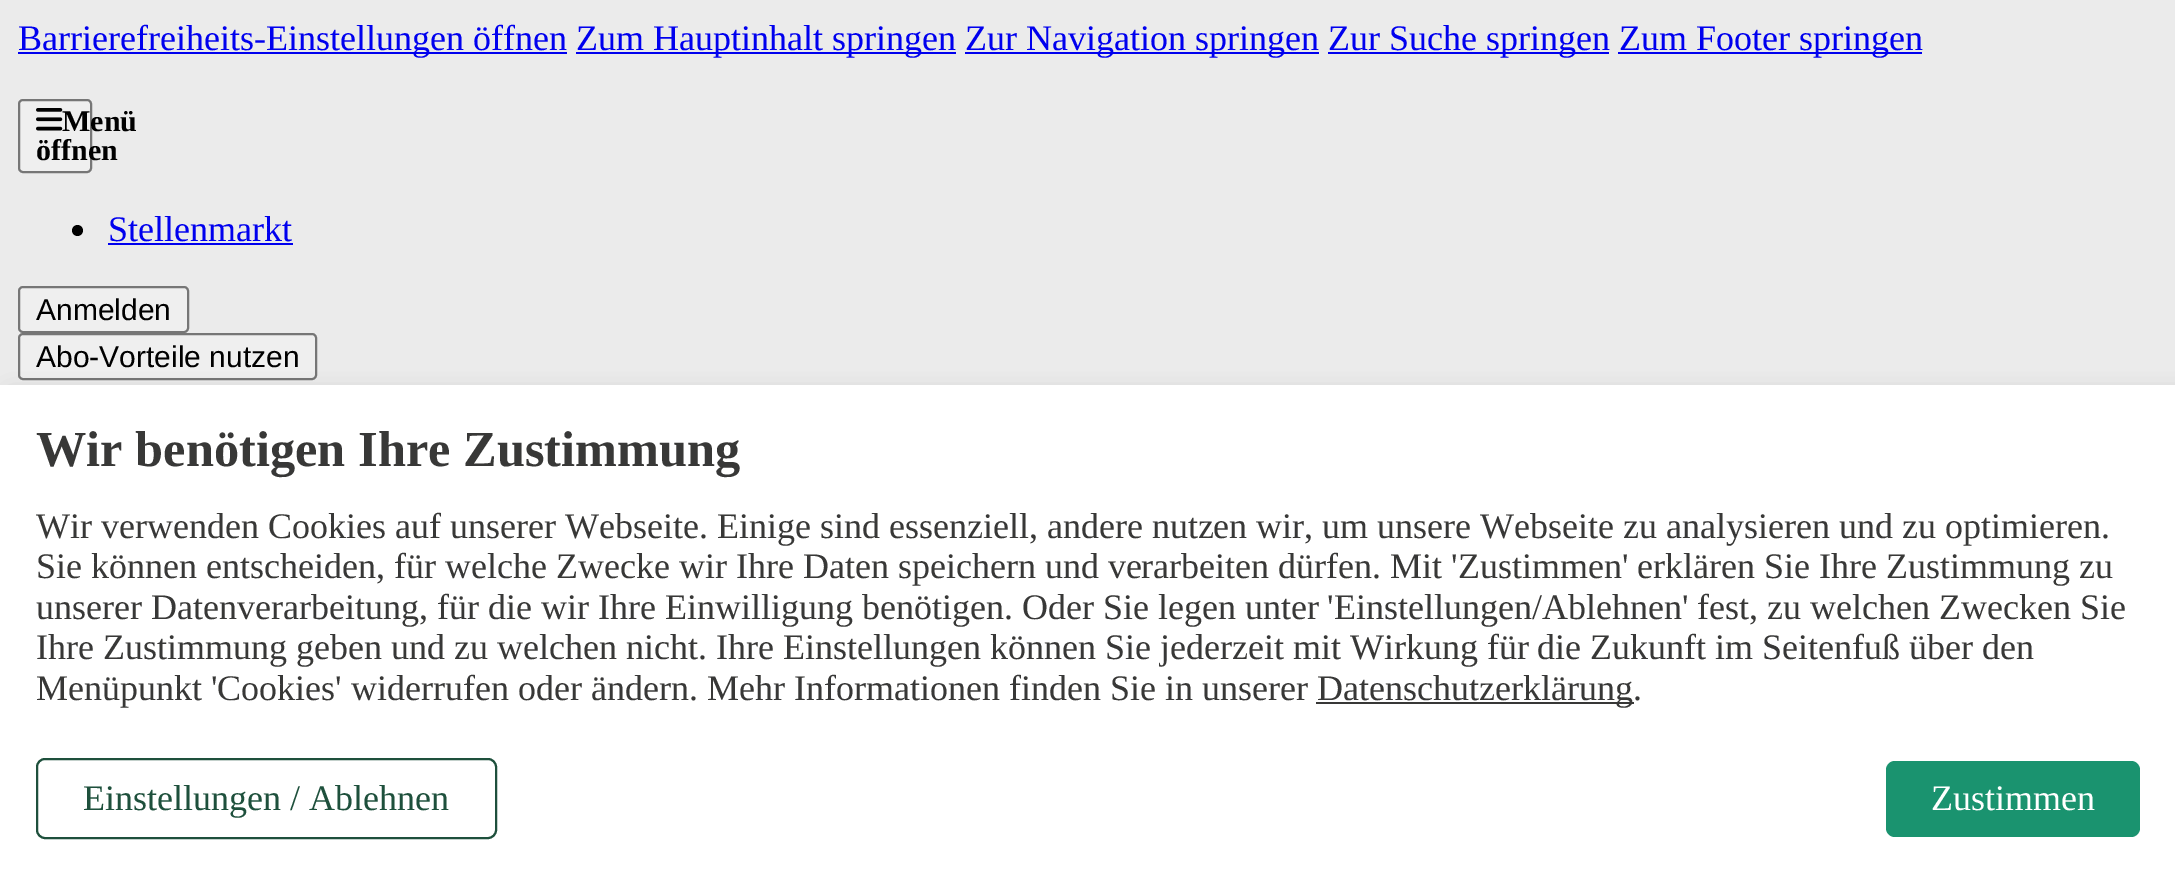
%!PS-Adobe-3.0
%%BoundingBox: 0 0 2175 874
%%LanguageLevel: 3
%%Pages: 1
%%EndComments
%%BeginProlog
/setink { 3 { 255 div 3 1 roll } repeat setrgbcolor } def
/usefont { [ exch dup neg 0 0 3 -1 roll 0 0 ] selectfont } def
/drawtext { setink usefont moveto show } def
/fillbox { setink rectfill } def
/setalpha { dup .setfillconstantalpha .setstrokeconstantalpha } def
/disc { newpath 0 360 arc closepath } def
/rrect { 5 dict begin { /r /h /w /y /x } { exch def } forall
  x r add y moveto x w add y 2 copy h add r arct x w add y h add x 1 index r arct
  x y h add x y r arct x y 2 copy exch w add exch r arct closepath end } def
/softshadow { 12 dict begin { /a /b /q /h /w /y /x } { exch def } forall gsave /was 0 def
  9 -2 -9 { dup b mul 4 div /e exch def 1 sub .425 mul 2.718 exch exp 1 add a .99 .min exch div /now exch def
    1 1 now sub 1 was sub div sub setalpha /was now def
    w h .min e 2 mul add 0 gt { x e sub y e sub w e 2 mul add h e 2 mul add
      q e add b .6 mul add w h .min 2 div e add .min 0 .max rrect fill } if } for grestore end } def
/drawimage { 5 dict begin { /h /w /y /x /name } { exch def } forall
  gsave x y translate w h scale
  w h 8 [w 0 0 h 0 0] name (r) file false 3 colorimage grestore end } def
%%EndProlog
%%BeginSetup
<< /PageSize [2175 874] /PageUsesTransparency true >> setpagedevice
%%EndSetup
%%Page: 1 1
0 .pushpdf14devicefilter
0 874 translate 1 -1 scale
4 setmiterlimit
0 0 2175 874 235 235 235 fillbox
18 52 549 2 0 0 238 fillbox
(Barrierefreiheits-Einstellungen öffnen) 18 50 /LiberationSerif-Regular 36 0 0 238 drawtext
576 52 380 2 0 0 238 fillbox
(Zum Hauptinhalt springen) 576 50 /LiberationSerif-Regular 36 0 0 238 drawtext
965 52 354 2 0 0 238 fillbox
(Zur Navigation springen) 965 50 /LiberationSerif-Regular 36 0 0 238 drawtext
1328 52 281 2 0 0 238 fillbox
(Zur Suche springen) 1328 50 /LiberationSerif-Regular 36 0 0 238 drawtext
1618 52 304 2 0 0 238 fillbox
(Zum Footer springen) 1619 50 /LiberationSerif-Regular 36 0 0 238 drawtext
239 239 239 setink
19 100 72 72 4 rrect gsave fill grestore
118 118 118 setink
2 setlinewidth
stroke
(assets/img1.rgb) 36 108 27 23 drawimage
(Menü) 62 131 /LiberationSerif-Bold 30 0 0 0 drawtext
(öffnen) 36 160 /LiberationSerif-Bold 30 0 0 0 drawtext
77.5 230.5 5.5 disc fill
(Stellenmarkt) 108 241 /LiberationSerif-Regular 36 0 0 238 drawtext
108 243 185 2 0 0 238 fillbox
239 239 239 setink
19 287 169 45 4 rrect gsave fill grestore
118 118 118 setink
stroke
(Anmelden) 36 320 /LiberationSans-Regular 30 0 0 0 drawtext
239 239 239 setink
19 334 297 45 4 rrect gsave fill grestore
118 118 118 setink
stroke
(Abo-Vorteile nutzen) 36 367 /LiberationSans-Regular 30 0 0 0 drawtext
11 396 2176 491 0 11 0.19 softshadow
0 385 2175 489 255 255 255 fillbox
(Wir benötigen Ihre Zustimmung) 36 466 /LiberationSerif-Bold 50.4 56 56 55 drawtext
(Wir verwenden Cookies auf unserer Webseite. Einige sind essenziell, andere nutzen wir, um unsere Webseite zu analysieren und zu optimieren.) 36 538 /LiberationSerif-Regular 36 56 56 55 drawtext
(Sie können entscheiden, für welche Zwecke wir Ihre Daten speichern und verarbeiten dürfen. Mit 'Zustimmen' erklären Sie Ihre Zustimmung zu) 36 578 /LiberationSerif-Regular 36 56 56 55 drawtext
(unserer Datenverarbeitung, für die wir Ihre Einwilligung benötigen. Oder Sie legen unter 'Einstellungen/Ablehnen' fest, zu welchen Zwecken Sie) 36 619 /LiberationSerif-Regular 36 56 56 55 drawtext
(Ihre Zustimmung geben und zu welchen nicht. Ihre Einstellungen können Sie jederzeit mit Wirkung für die Zukunft im Seitenfuß über den) 36 659 /LiberationSerif-Regular 36 56 56 55 drawtext
(Menüpunkt 'Cookies' widerrufen oder ändern. Mehr Informationen finden Sie in unserer) 36 700 /LiberationSerif-Regular 36 56 56 55 drawtext
1316 702 318 2 56 56 55 fillbox
(Datenschutzerklärung.) 1317 700 /LiberationSerif-Regular 36 56 56 55 drawtext
30 80 60 setink
37 759 459 79 8 rrect stroke
(Einstellungen / Ablehnen) 83 810 /LiberationSerif-Regular 36 30 80 60 drawtext
26 147 111 setink
1886 761 254 76 9 rrect fill
(Zustimmen) 1931 810 /LiberationSerif-Regular 36 255 255 255 drawtext
.poppdf14devicefilter showpage
%%EOF
